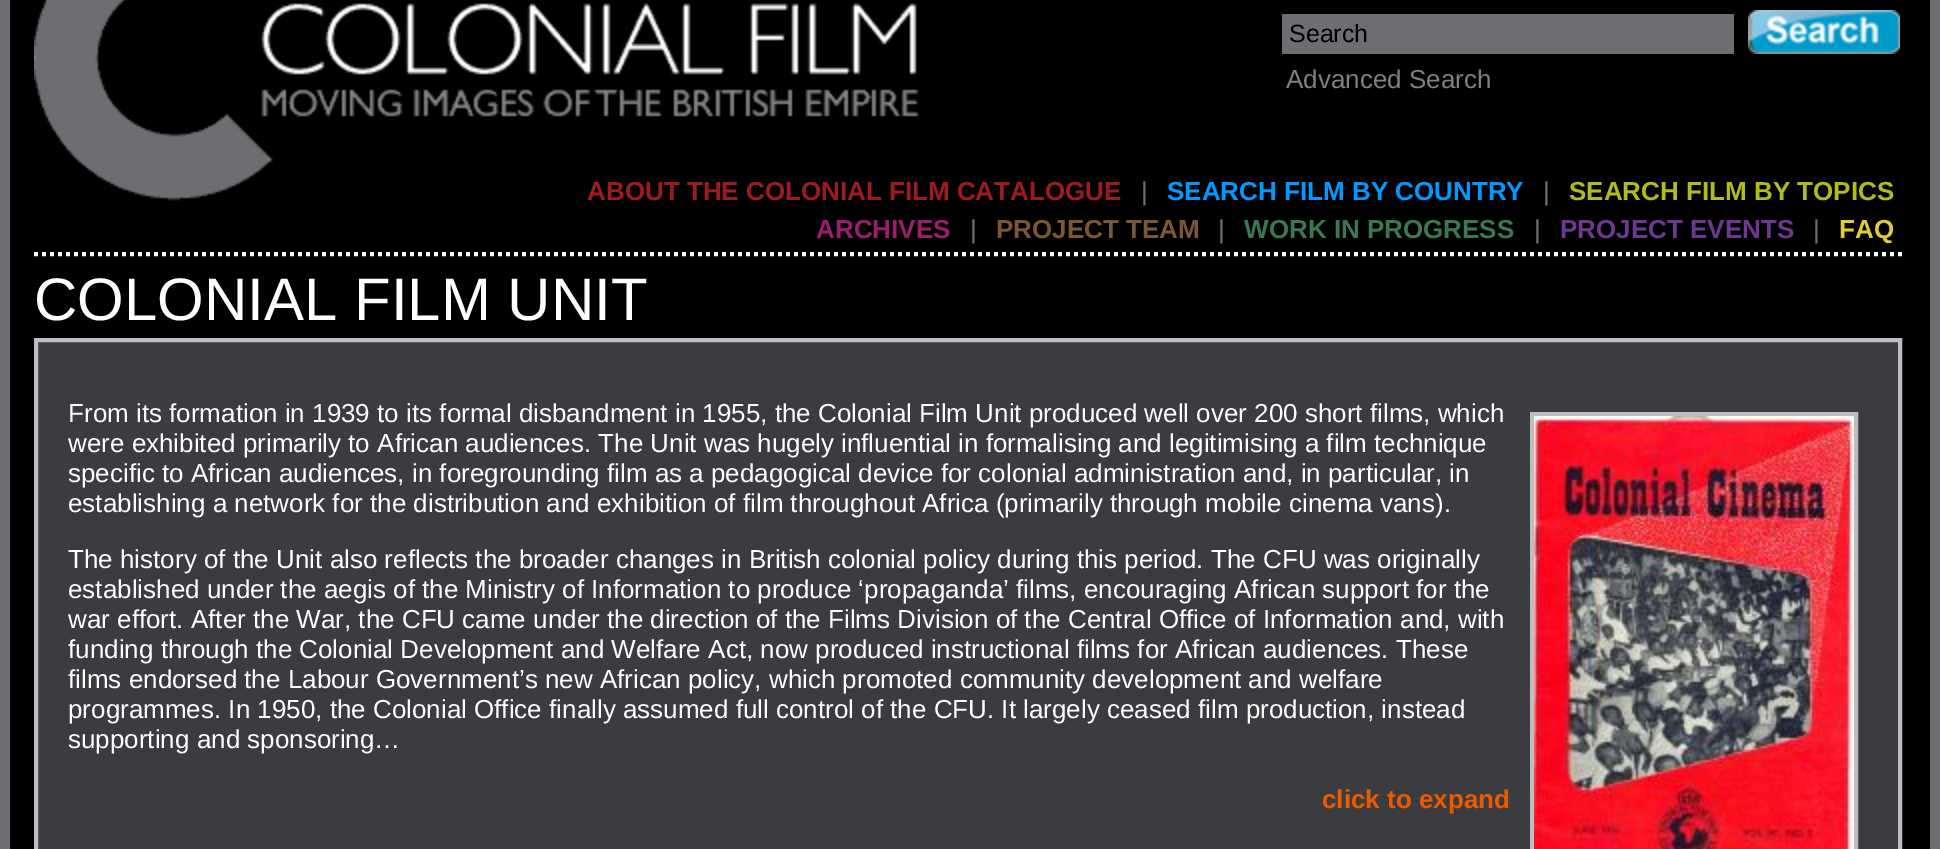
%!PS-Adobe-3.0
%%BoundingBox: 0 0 1940 849
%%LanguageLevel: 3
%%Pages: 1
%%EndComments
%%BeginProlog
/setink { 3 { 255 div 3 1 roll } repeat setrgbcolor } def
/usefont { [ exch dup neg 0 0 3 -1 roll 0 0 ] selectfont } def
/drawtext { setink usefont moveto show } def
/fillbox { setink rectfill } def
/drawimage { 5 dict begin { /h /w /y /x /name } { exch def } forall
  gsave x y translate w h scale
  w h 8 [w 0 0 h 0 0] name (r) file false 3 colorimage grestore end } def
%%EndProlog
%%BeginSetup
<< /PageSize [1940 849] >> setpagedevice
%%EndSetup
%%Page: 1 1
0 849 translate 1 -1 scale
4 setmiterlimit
0 0 1940 849 109 110 114 fillbox
10 0 1920 849 0 0 0 fillbox
255 255 255 setink
4 setlinewidth
[4 4] 0 setdash
34 254 moveto 1906 254 lineto stroke
(assets/img1.rgb) 34 0 885 201 drawimage
1282 14 452 40 109 110 114 fillbox
(Search) 1289 42 /LiberationSans-Regular 25 0 0 0 drawtext
(assets/img2.rgb) 1748 10 152 44 drawimage
(Advanced Search) 1286 88 /LiberationSans-Regular 26 128 128 128 drawtext
(ABOUT THE COLONIAL FILM CATALOGUE) 587 200 /LiberationSans-Bold 26 156 28 30 drawtext
(|) 1141 200 /LiberationSans-Regular 26 109 110 114 drawtext
(SEARCH FILM BY COUNTRY) 1167 200 /LiberationSans-Bold 26 0 153 255 drawtext
(|) 1543 200 /LiberationSans-Regular 26 109 110 114 drawtext
(SEARCH FILM BY TOPICS) 1569 200 /LiberationSans-Bold 26 177 187 28 drawtext
(ARCHIVES) 816 238 /LiberationSans-Bold 26 155 30 110 drawtext
(|) 970 238 /LiberationSans-Regular 26 109 110 114 drawtext
(PROJECT TEAM) 996 238 /LiberationSans-Bold 26 122 88 50 drawtext
(|) 1218 238 /LiberationSans-Regular 26 109 110 114 drawtext
(WORK IN PROGRESS) 1244 238 /LiberationSans-Bold 26 56 121 79 drawtext
(|) 1534 238 /LiberationSans-Regular 26 109 110 114 drawtext
(PROJECT EVENTS) 1560 238 /LiberationSans-Bold 26 110 56 144 drawtext
(|) 1813 238 /LiberationSans-Regular 26 109 110 114 drawtext
(FAQ) 1839 238 /LiberationSans-Bold 26 225 204 51 drawtext
(COLONIAL FILM UNIT) 34 320 /LiberationSans-Regular 60 255 255 255 drawtext
59 60 64 setink
36 340 moveto 1900 340 lineto 1900 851 lineto 36 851 lineto closepath gsave fill grestore
189 190 194 setink
[] 0 setdash
stroke
(From its formation in 1939 to its formal disbandment in 1955, the Colonial Film Unit produced well over 200 short films, which) 68 422 /LiberationSans-Regular 26 255 255 255 drawtext
(were exhibited primarily to African audiences. The Unit was hugely influential in formalising and legitimising a film technique) 68 452 /LiberationSans-Regular 26 255 255 255 drawtext
(specific to African audiences, in foregrounding film as a pedagogical device for colonial administration and, in particular, in) 68 482 /LiberationSans-Regular 26 255 255 255 drawtext
(establishing a network for the distribution and exhibition of film throughout Africa \(primarily through mobile cinema vans\).) 68 512 /LiberationSans-Regular 26 255 255 255 drawtext
(The history of the Unit also reflects the broader changes in British colonial policy during this period. The CFU was originally) 68 568 /LiberationSans-Regular 26 255 255 255 drawtext
(established under the aegis of the Ministry of Information to produce ‘propaganda’ films, encouraging African support for the) 68 598 /LiberationSans-Regular 26 255 255 255 drawtext
(war effort. After the War, the CFU came under the direction of the Films Division of the Central Office of Information and, with) 68 628 /LiberationSans-Regular 26 255 255 255 drawtext
(funding through the Colonial Development and Welfare Act, now produced instructional films for African audiences. These) 68 658 /LiberationSans-Regular 26 255 255 255 drawtext
(films endorsed the Labour Government’s new African policy, which promoted community development and welfare) 68 688 /LiberationSans-Regular 26 255 255 255 drawtext
(programmes. In 1950, the Colonial Office finally assumed full control of the CFU. It largely ceased film production, instead) 68 718 /LiberationSans-Regular 26 255 255 255 drawtext
(supporting and sponsoring…) 68 748 /LiberationSans-Regular 26 255 255 255 drawtext
189 190 194 setink
1532 414 324 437 rectstroke
(assets/img3.rgb) 1534 416 320 433 drawimage
(click to expand) 1322 808 /LiberationSans-Bold 26 235 90 0 drawtext
showpage
%%EOF
